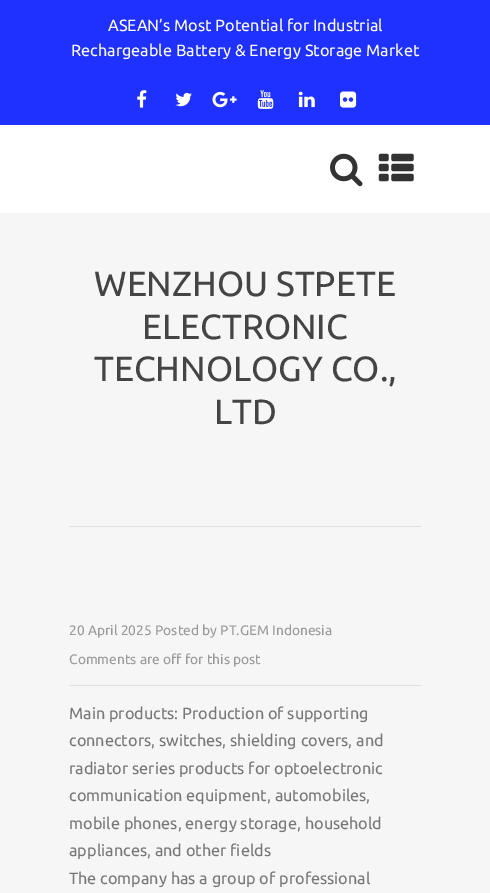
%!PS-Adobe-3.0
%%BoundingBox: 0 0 490 893
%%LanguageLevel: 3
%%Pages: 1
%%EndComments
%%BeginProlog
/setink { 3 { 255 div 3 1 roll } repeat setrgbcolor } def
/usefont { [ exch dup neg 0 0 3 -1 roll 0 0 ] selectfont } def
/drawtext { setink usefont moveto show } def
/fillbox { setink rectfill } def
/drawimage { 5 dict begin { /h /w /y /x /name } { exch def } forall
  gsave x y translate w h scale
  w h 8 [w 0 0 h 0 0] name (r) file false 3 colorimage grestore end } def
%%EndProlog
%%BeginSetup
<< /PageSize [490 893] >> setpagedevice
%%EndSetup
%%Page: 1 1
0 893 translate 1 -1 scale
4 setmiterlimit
0 0 490 893 255 255 255 fillbox
0 0 490 125 30 49 255 fillbox
(ASEAN’s Most Potential for Industrial) 108 31 /Ubuntu-Regular 16.25 255 255 255 drawtext
(Rechargeable Battery & Energy Storage Market) 71 56 /Ubuntu-Regular 16.25 255 255 255 drawtext
(assets/img1.rgb) 137 90 10 18 drawimage
(assets/img2.rgb) 175 92 17 15 drawimage
(assets/img3.rgb) 212 91 25 17 drawimage
(assets/img4.rgb) 257 90 17 19 drawimage
(assets/img5.rgb) 298 91 17 17 drawimage
(assets/img6.rgb) 340 91 17 17 drawimage
(assets/img7.rgb) 330 153 33 34 drawimage
(assets/img8.rgb) 378 153 36 29 drawimage
0 213 490 680 246 246 246 fillbox
69 526 352 1 224 224 224 fillbox
(WENZHOU STPETE) 94 296 /Ubuntu-Regular 35 68 68 68 drawtext
(ELECTRONIC) 142 339 /Ubuntu-Regular 35 68 68 68 drawtext
(TECHNOLOGY CO.,) 94 381 /Ubuntu-Regular 35 68 68 68 drawtext
(LTD) 214 424 /Ubuntu-Regular 35 68 68 68 drawtext
69 685 352 1 224 224 224 fillbox
(20 April 2025) 69 635 /Ubuntu-Regular 13.75 153 153 153 drawtext
(Posted by PT.GEM Indonesia) 155 635 /Ubuntu-Regular 13.75 153 153 153 drawtext
(Comments are off for this post) 69 664 /Ubuntu-Regular 13.75 153 153 153 drawtext
(Main products: Production of supporting) 69 719 /Ubuntu-Regular 16.25 119 119 119 drawtext
(connectors, switches, shielding covers, and) 69 746 /Ubuntu-Regular 16.25 119 119 119 drawtext
(radiator series products for optoelectronic) 69 774 /Ubuntu-Regular 16.25 119 119 119 drawtext
(communication equipment, automobiles,) 69 801 /Ubuntu-Regular 16.25 119 119 119 drawtext
(mobile phones, energy storage, household) 69 829 /Ubuntu-Regular 16.25 119 119 119 drawtext
(appliances, and other fields) 69 856 /Ubuntu-Regular 16.25 119 119 119 drawtext
(The company has a group of professional) 69 884 /Ubuntu-Regular 16.25 119 119 119 drawtext
showpage
%%EOF
